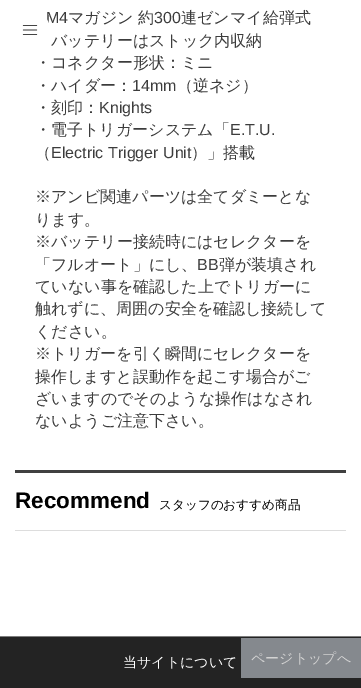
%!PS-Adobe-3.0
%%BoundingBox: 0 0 361 688
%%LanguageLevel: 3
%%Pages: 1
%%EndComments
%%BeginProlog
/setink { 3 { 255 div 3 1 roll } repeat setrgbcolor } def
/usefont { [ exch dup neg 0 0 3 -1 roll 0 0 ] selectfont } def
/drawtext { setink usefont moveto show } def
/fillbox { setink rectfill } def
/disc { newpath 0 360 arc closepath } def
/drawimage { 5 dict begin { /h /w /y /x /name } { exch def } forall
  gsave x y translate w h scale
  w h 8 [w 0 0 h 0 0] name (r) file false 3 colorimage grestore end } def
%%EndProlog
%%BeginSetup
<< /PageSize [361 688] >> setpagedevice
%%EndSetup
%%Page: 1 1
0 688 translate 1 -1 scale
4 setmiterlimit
0 0 361 688 255 255 255 fillbox
(M4) 46 23 /LiberationSans-Regular 16 60 60 60 drawtext
(マガジン 約) 68 23 /WenQuanYiZenHei-Medium 16 60 60 60 drawtext
(300) 154 23 /LiberationSans-Regular 16 60 60 60 drawtext
(連ゼンマイ給弾式) 181 23 /WenQuanYiZenHei-Medium 16 60 60 60 drawtext
(バッテリーはストック内収納) 51 46 /WenQuanYiZenHei-Medium 16 60 60 60 drawtext
(・コネクター形状：ミニ) 35 68 /WenQuanYiZenHei-Medium 16 60 60 60 drawtext
(・ハイダー：) 35 91 /WenQuanYiZenHei-Medium 16 60 60 60 drawtext
(14mm) 132 91 /LiberationSans-Regular 16 60 60 60 drawtext
(（逆ネジ）) 177 91 /WenQuanYiZenHei-Medium 16 60 60 60 drawtext
(・刻印：) 35 113 /WenQuanYiZenHei-Medium 16 60 60 60 drawtext
(Knights) 99 113 /LiberationSans-Regular 16 60 60 60 drawtext
(・電子トリガーシステム「) 35 135 /WenQuanYiZenHei-Medium 16 60 60 60 drawtext
(E.T.U.) 230 135 /LiberationSans-Regular 16 60 60 60 drawtext
(（) 35 158 /WenQuanYiZenHei-Medium 16 60 60 60 drawtext
(Electric Trigger Unit) 51 158 /LiberationSans-Regular 16 60 60 60 drawtext
(）」搭載) 191 158 /WenQuanYiZenHei-Medium 16 60 60 60 drawtext
(※アンビ関連パーツは全てダミーとな) 35 202 /WenQuanYiZenHei-Medium 16 60 60 60 drawtext
(ります。) 35 225 /WenQuanYiZenHei-Medium 16 60 60 60 drawtext
(※バッテリー接続時にはセレクターを) 35 247 /WenQuanYiZenHei-Medium 16 60 60 60 drawtext
(「フルオート」にし、) 35 270 /WenQuanYiZenHei-Medium 16 60 60 60 drawtext
(BB) 197 270 /LiberationSans-Regular 16 60 60 60 drawtext
(弾が装填され) 219 270 /WenQuanYiZenHei-Medium 16 60 60 60 drawtext
(ていない事を確認した上でトリガーに) 35 292 /WenQuanYiZenHei-Medium 16 60 60 60 drawtext
(触れずに、周囲の安全を確認し接続して) 35 314 /WenQuanYiZenHei-Medium 16 60 60 60 drawtext
(ください。) 35 337 /WenQuanYiZenHei-Medium 16 60 60 60 drawtext
(※トリガーを引く瞬間にセレクターを) 35 359 /WenQuanYiZenHei-Medium 16 60 60 60 drawtext
(操作しますと誤動作を起こす場合がご) 35 382 /WenQuanYiZenHei-Medium 16 60 60 60 drawtext
(ざいますのでそのような操作はなされ) 35 404 /WenQuanYiZenHei-Medium 16 60 60 60 drawtext
(ないようご注意下さい。) 35 426 /WenQuanYiZenHei-Medium 16 60 60 60 drawtext
15 470 331 3 64 64 64 fillbox
15 530 331 1 221 221 221 fillbox
(Recommend) 15 508 /LiberationSans-Bold 22.5 0 0 0 drawtext
(スタッフのおすすめ商品) 159 509 /WenQuanYiZenHei-Medium 12.6 0 0 0 drawtext
0 637 361 51 35 35 35 fillbox
0 636 361 1 125 125 125 fillbox
(当サイトについて) 123 667 /WenQuanYiZenHei-Medium 14 255 255 255 drawtext
30 30 20 disc fill
(assets/img1.rgb) 22 25 16 10 drawimage
241 638 120 40 133 137 142 fillbox
(ページトップへ) 251 663 /WenQuanYiZenHei-Medium 14 211 211 211 drawtext
showpage
%%EOF
